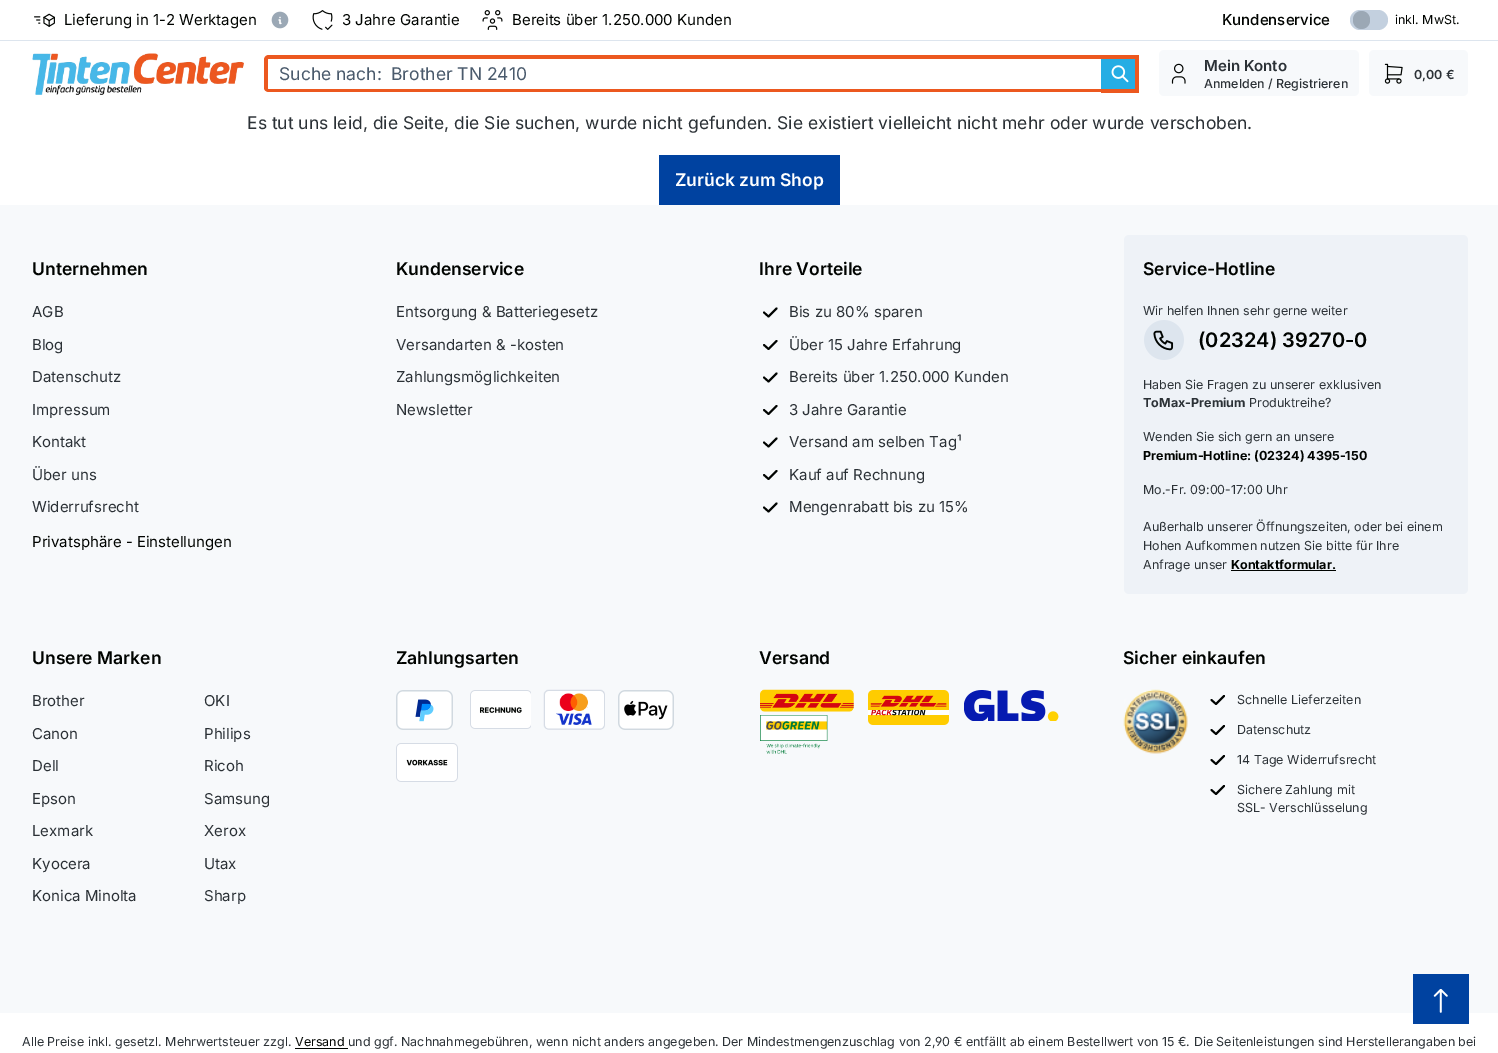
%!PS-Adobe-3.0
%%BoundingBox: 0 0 1498 1053
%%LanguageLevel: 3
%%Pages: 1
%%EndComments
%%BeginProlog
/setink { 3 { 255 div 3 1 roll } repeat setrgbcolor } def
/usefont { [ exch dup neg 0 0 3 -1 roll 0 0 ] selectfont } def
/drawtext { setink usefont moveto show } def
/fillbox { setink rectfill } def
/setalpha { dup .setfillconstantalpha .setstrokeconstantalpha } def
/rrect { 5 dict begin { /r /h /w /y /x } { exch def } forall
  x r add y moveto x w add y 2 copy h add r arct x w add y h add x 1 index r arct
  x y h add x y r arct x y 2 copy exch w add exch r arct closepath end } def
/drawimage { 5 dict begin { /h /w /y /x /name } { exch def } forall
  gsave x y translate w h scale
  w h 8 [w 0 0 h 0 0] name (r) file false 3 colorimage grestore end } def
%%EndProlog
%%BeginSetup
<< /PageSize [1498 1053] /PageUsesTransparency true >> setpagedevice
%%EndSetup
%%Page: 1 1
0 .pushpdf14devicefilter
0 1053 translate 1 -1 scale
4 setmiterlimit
0 0 1498 1053 255 255 255 fillbox
(assets/img1.rgb) 34 13 21 14 drawimage
(Lieferung in 1-2 Werktagen) 64 25 /Inter-Regular 15 0 3 0 drawtext
(assets/img2.rgb) 271 11 18 18 drawimage
(assets/img3.rgb) 312 10 21 20 drawimage
(3 Jahre Garantie) 342 25 /Inter-Regular 15 0 3 0 drawtext
(assets/img4.rgb) 482 10 21 20 drawimage
(Bereits über 1.250.000 Kunden) 512 25 /Inter-Regular 15 0 3 0 drawtext
(Kundenservice) 1222 25 /Inter-Medium 15 0 3 0 drawtext
195 208 223 setink
1350 10 38 20 10 rrect fill
155 168 181 setink
1353 11 17 18 8.5 rrect fill
(inkl. MwSt.) 1395 24 /Inter-Regular 12.5 0 3 0 drawtext
0 40 1498 1 221 229 238 fillbox
(assets/img5.rgb) 32 53 212 42 drawimage
236 88 31 setink
269 55 moveto 1102 55 lineto 1102 92 lineto 269 92 lineto 266 92 264 90 264 88 curveto 264 60 lineto 264 57 266 55 269 55 curveto closepath 269 59 moveto 1102 59 lineto 1102 89 lineto 269 89 lineto 268 89 268 88 268 88 curveto 268 60 lineto 268 59 268 59 269 59 curveto closepath eofill
0.9 setalpha
268 59 1 30 255 255 255 fillbox
1 setalpha
(Suche nach:) 279 80 /Inter-Regular 17.5 74 90 108 drawtext
(Brother TN 2410) 391 80 /Inter-Regular 17.5 74 90 108 drawtext
1101 59 34 30 37 173 228 fillbox
1101 55 38 4 236 88 31 fillbox
1135 55 4 38 236 88 31 fillbox
1101 89 38 4 236 88 31 fillbox
(assets/img6.rgb) 1111 65 18 18 drawimage
247 249 251 setink
1159 50 200 46 5 rrect fill
(assets/img7.rgb) 1171 63 15 21 drawimage
(Mein Konto) 1204 71 /Inter-SemiBold 15 43 49 54 drawtext
(Anmelden / Registrieren) 1204 88 /Inter-Medium 12.5 43 49 54 drawtext
247 249 251 setink
1369 50 99 46 5 rrect fill
(assets/img8.rgb) 1384 63 19 21 drawimage
(0,00 €) 1414 79 /Inter-SemiBold 12.5 43 49 54 drawtext
(Es tut uns leid, die Seite, die Sie suchen, wurde nicht gefunden. Sie existiert vielleicht nicht mehr oder wurde verschoben.) 247 129 /Inter-Regular 17.5 43 49 54 drawtext
659 155 181 50 0 66 160 fillbox
(Zurück zum Shop) 675 186 /Inter-SemiBold 17.5 255 255 255 drawtext
0 205 1498 808 247 249 251 fillbox
(Unternehmen) 32 275 /Inter-SemiBold 17.5 0 3 0 drawtext
(AGB) 32 317 /Inter-Regular 15 43 49 54 drawtext
(Blog) 32 350 /Inter-Regular 15 43 49 54 drawtext
(Datenschutz) 32 382 /Inter-Regular 15 43 49 54 drawtext
(Impressum) 32 415 /Inter-Regular 15 43 49 54 drawtext
(Kontakt) 32 447 /Inter-Regular 15 43 49 54 drawtext
(Über uns) 32 480 /Inter-Regular 15 43 49 54 drawtext
(Widerrufsrecht) 32 512 /Inter-Regular 15 43 49 54 drawtext
(Privatsphäre - Einstellungen) 32 547 /Inter-Regular 15 0 3 0 drawtext
(Kundenservice) 396 275 /Inter-SemiBold 17.5 0 3 0 drawtext
(Entsorgung & Batteriegesetz) 396 317 /Inter-Regular 15 43 49 54 drawtext
(Versandarten & -kosten) 396 350 /Inter-Regular 15 43 49 54 drawtext
(Zahlungsmöglichkeiten) 396 382 /Inter-Regular 15 43 49 54 drawtext
(Newsletter) 396 415 /Inter-Regular 15 43 49 54 drawtext
(Ihre Vorteile) 759 275 /Inter-SemiBold 17.5 0 3 0 drawtext
1.9 setlinewidth
1 setlinecap
1 setlinejoin
764 312.5 moveto 768.5 316.5 lineto 776.5 308.5 lineto stroke
(Bis zu 80% sparen) 789 317 /Inter-Regular 15 43 49 54 drawtext
0 3 0 setink
764 345 moveto 768.5 349 lineto 776.5 341 lineto stroke
(Über 15 Jahre Erfahrung) 789 350 /Inter-Regular 15 43 49 54 drawtext
0 3 0 setink
764 377.5 moveto 768.5 381.5 lineto 776.5 373.5 lineto stroke
(Bereits über 1.250.000 Kunden) 789 382 /Inter-Regular 15 43 49 54 drawtext
0 3 0 setink
764 410 moveto 768.5 414 lineto 776.5 406 lineto stroke
(3 Jahre Garantie) 789 415 /Inter-Regular 15 43 49 54 drawtext
0 3 0 setink
764 442.5 moveto 768.5 446.5 lineto 776.5 438.5 lineto stroke
(Versand am selben Tag¹) 789 447 /Inter-Regular 15 43 49 54 drawtext
0 3 0 setink
764 475 moveto 768.5 479 lineto 776.5 471 lineto stroke
(Kauf auf Rechnung) 789 480 /Inter-Regular 15 43 49 54 drawtext
0 3 0 setink
764 507.5 moveto 768.5 511.5 lineto 776.5 503.5 lineto stroke
(Mengenrabatt bis zu 15%) 789 512 /Inter-Regular 15 43 49 54 drawtext
238 242 247 setink
1124 235 344 359 5 rrect fill
(Service-Hotline) 1143 275 /Inter-SemiBold 17.5 0 3 0 drawtext
(Wir helfen Ihnen sehr gerne weiter) 1143 315 /Inter-Regular 12.5 43 49 54 drawtext
(assets/img9.rgb) 1144 320 40 40 drawimage
(\(02324\) 39270-0) 1198 347 /Inter-SemiBold 20 0 3 0 drawtext
(Haben Sie Fragen zu unserer exklusiven) 1143 389 /Inter-Regular 12.5 43 49 54 drawtext
(ToMax-Premium) 1143 407 /Inter-Bold 12.5 43 49 54 drawtext
(Produktreihe?) 1249 407 /Inter-Regular 12.5 43 49 54 drawtext
(Wenden Sie sich gern an unsere) 1143 441 /Inter-Regular 12.5 43 49 54 drawtext
(Premium-Hotline: \(02324\) 4395-150) 1143 460 /Inter-Bold 12.5 0 3 0 drawtext
(Mo.-Fr. 09:00-17:00 Uhr) 1143 494 /Inter-Regular 12.5 43 49 54 drawtext
(Außerhalb unserer Öffnungszeiten, oder bei einem) 1143 531 /Inter-Regular 12.5 43 49 54 drawtext
(Hohen Aufkommen nutzen Sie bitte für Ihre) 1143 550 /Inter-Regular 12.5 43 49 54 drawtext
(Anfrage unser) 1143 569 /Inter-Regular 12.5 43 49 54 drawtext
(Kontaktformular.) 1231 569 /Inter-Bold 12.5 0 3 0 drawtext
1231 570 105 1 0 3 0 fillbox
(Unsere Marken) 32 664 /Inter-SemiBold 17.5 0 3 0 drawtext
(Brother) 32 706 /Inter-Regular 15 43 49 54 drawtext
(OKI) 204 706 /Inter-Regular 15 43 49 54 drawtext
(Canon) 32 739 /Inter-Regular 15 43 49 54 drawtext
(Philips) 204 739 /Inter-Regular 15 43 49 54 drawtext
(Dell) 32 771 /Inter-Regular 15 43 49 54 drawtext
(Ricoh) 204 771 /Inter-Regular 15 43 49 54 drawtext
(Epson) 32 804 /Inter-Regular 15 43 49 54 drawtext
(Samsung) 204 804 /Inter-Regular 15 43 49 54 drawtext
(Lexmark) 32 836 /Inter-Regular 15 43 49 54 drawtext
(Xerox) 204 836 /Inter-Regular 15 43 49 54 drawtext
(Kyocera) 32 869 /Inter-Regular 15 43 49 54 drawtext
(Utax) 204 869 /Inter-Regular 15 43 49 54 drawtext
(Konica Minolta) 32 901 /Inter-Regular 15 43 49 54 drawtext
(Sharp) 204 901 /Inter-Regular 15 43 49 54 drawtext
(Zahlungsarten) 396 664 /Inter-SemiBold 17.5 0 3 0 drawtext
(assets/img10.rgb) 396 690 57 40 drawimage
(assets/img11.rgb) 470 690 61 39 drawimage
(assets/img12.rgb) 543 689 62 41 drawimage
(assets/img13.rgb) 618 690 56 40 drawimage
(assets/img14.rgb) 396 743 62 39 drawimage
(Versand) 759 664 /Inter-SemiBold 17.5 0 3 0 drawtext
(assets/img15.rgb) 760 689 94 65 drawimage
(assets/img16.rgb) 868 690 81 35 drawimage
(assets/img17.rgb) 964 690 95 31 drawimage
(Sicher einkaufen) 1123 664 /Inter-SemiBold 17.5 0 3 0 drawtext
(assets/img18.rgb) 1123 689 65 65 drawimage
1211.5 700 moveto 1216 704 lineto 1224 696 lineto stroke
(Schnelle Lieferzeiten) 1237 704 /Inter-Regular 12.5 43 49 54 drawtext
0 3 0 setink
1211.5 730 moveto 1216 734 lineto 1224 726 lineto stroke
(Datenschutz) 1237 734 /Inter-Regular 12.5 43 49 54 drawtext
0 3 0 setink
1211.5 760 moveto 1216 764 lineto 1224 756 lineto stroke
(14 Tage Widerrufsrecht) 1237 764 /Inter-Regular 12.5 43 49 54 drawtext
0 3 0 setink
1211.5 790 moveto 1216 794 lineto 1224 786 lineto stroke
(Sichere Zahlung mit) 1237 794 /Inter-Regular 12.5 43 49 54 drawtext
(SSL- Verschlüsselung) 1237 812 /Inter-Regular 12.5 43 49 54 drawtext
(Alle Preise inkl. gesetzl. Mehrwertsteuer zzgl.) 22 1046 /Inter-Regular 12.5 43 49 54 drawtext
(Versand) 295 1046 /Inter-Regular 12.5 0 3 0 drawtext
295 1048 53 1 0 3 0 fillbox
(und ggf. Nachnahmegebühren, wenn nicht anders angegeben. Der Mindestmengenzuschlag von 2,90 € entfällt ab einem Bestellwert von 15 €. Die Seitenleistungen sind Herstellerangaben bei) 348 1046 /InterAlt-Regular 12.5 43 49 54 drawtext
1413 974 56 50 0 66 160 fillbox
(assets/img19.rgb) 1433 989 15 24 drawimage
.poppdf14devicefilter showpage
%%EOF
